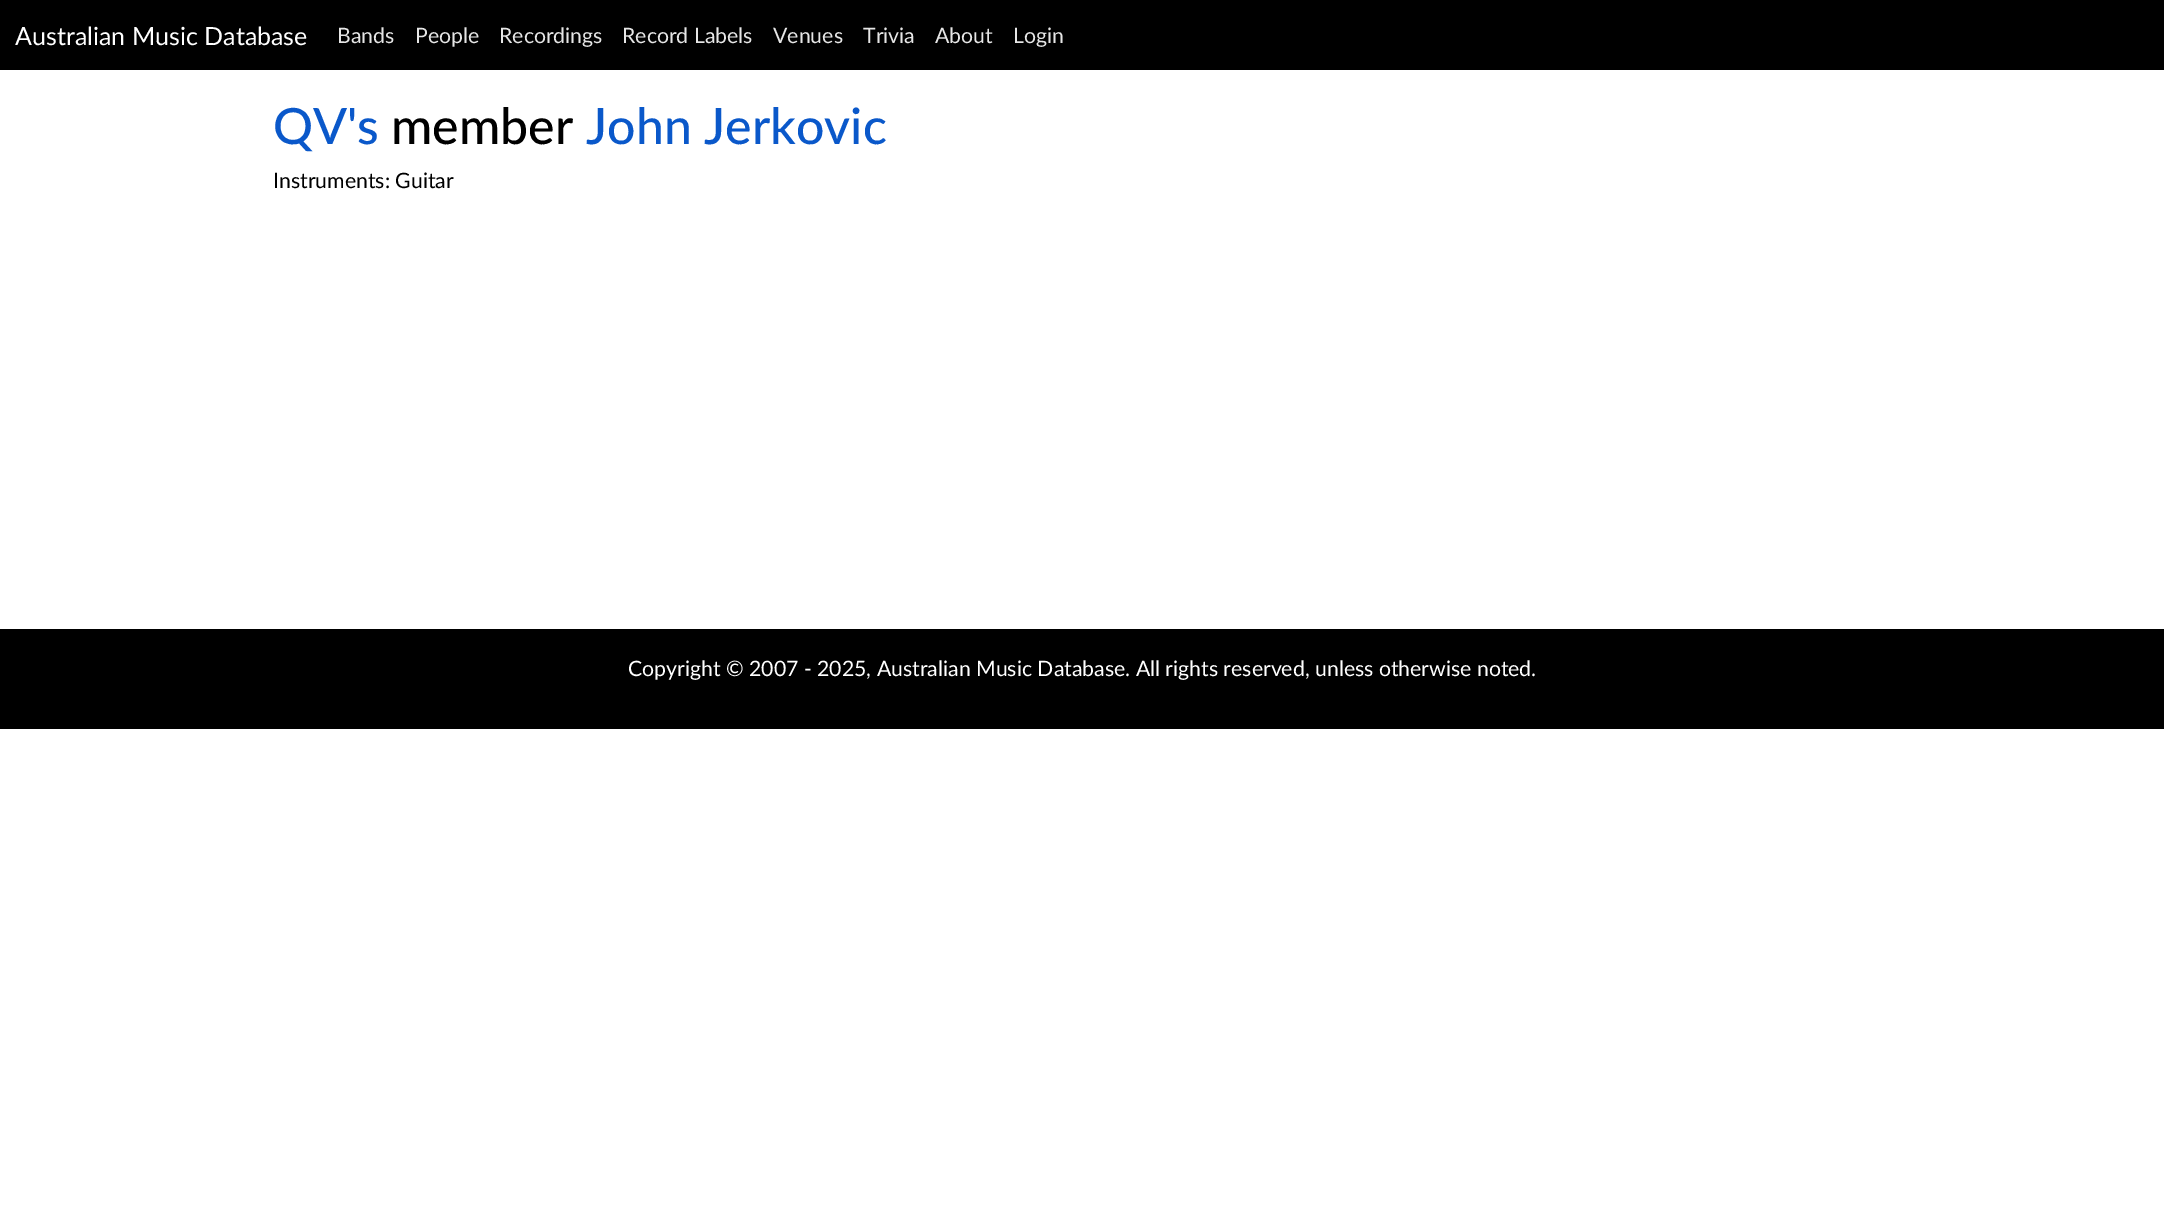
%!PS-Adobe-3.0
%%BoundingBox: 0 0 2164 1224
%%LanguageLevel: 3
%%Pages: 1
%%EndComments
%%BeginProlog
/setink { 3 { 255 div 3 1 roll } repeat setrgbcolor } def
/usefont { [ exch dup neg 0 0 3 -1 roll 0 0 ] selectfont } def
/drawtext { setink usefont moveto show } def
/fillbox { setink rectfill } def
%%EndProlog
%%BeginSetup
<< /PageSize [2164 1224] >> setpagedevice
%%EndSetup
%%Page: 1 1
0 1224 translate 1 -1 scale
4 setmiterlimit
0 0 2164 1224 255 255 255 fillbox
0 0 2164 70 0 0 0 fillbox
(Australian Music Database) 15 45 /Lato-Regular 25 255 255 255 drawtext
(Bands) 337 43 /Lato-Regular 21.25 230 230 230 drawtext
(People) 415 43 /Lato-Regular 21.25 230 230 230 drawtext
(Recordings) 499 43 /Lato-Regular 21.25 230 230 230 drawtext
(Record Labels) 622 43 /Lato-Regular 21.25 230 230 230 drawtext
(Venues) 773 43 /Lato-Regular 21.25 230 230 230 drawtext
(Trivia) 863 43 /Lato-Regular 21.25 230 230 230 drawtext
(About) 935 43 /Lato-Regular 21.25 230 230 230 drawtext
(Login) 1013 43 /Lato-Regular 21.25 230 230 230 drawtext
(QV's) 273 144 /Lato-Medium 50 10 88 202 drawtext
(member) 391 144 /Lato-Medium 50 0 0 0 drawtext
(John Jerkovic) 586 144 /Lato-Medium 50 10 88 202 drawtext
(Instruments: Guitar) 273 188 /Lato-Regular 21.25 0 0 0 drawtext
0 629 2164 100 0 0 0 fillbox
(Copyright © 2007 - 2025, Australian Music Database. All rights reserved, unless otherwise noted.) 628 676 /Lato-Regular 21.25 255 255 255 drawtext
showpage
%%EOF
